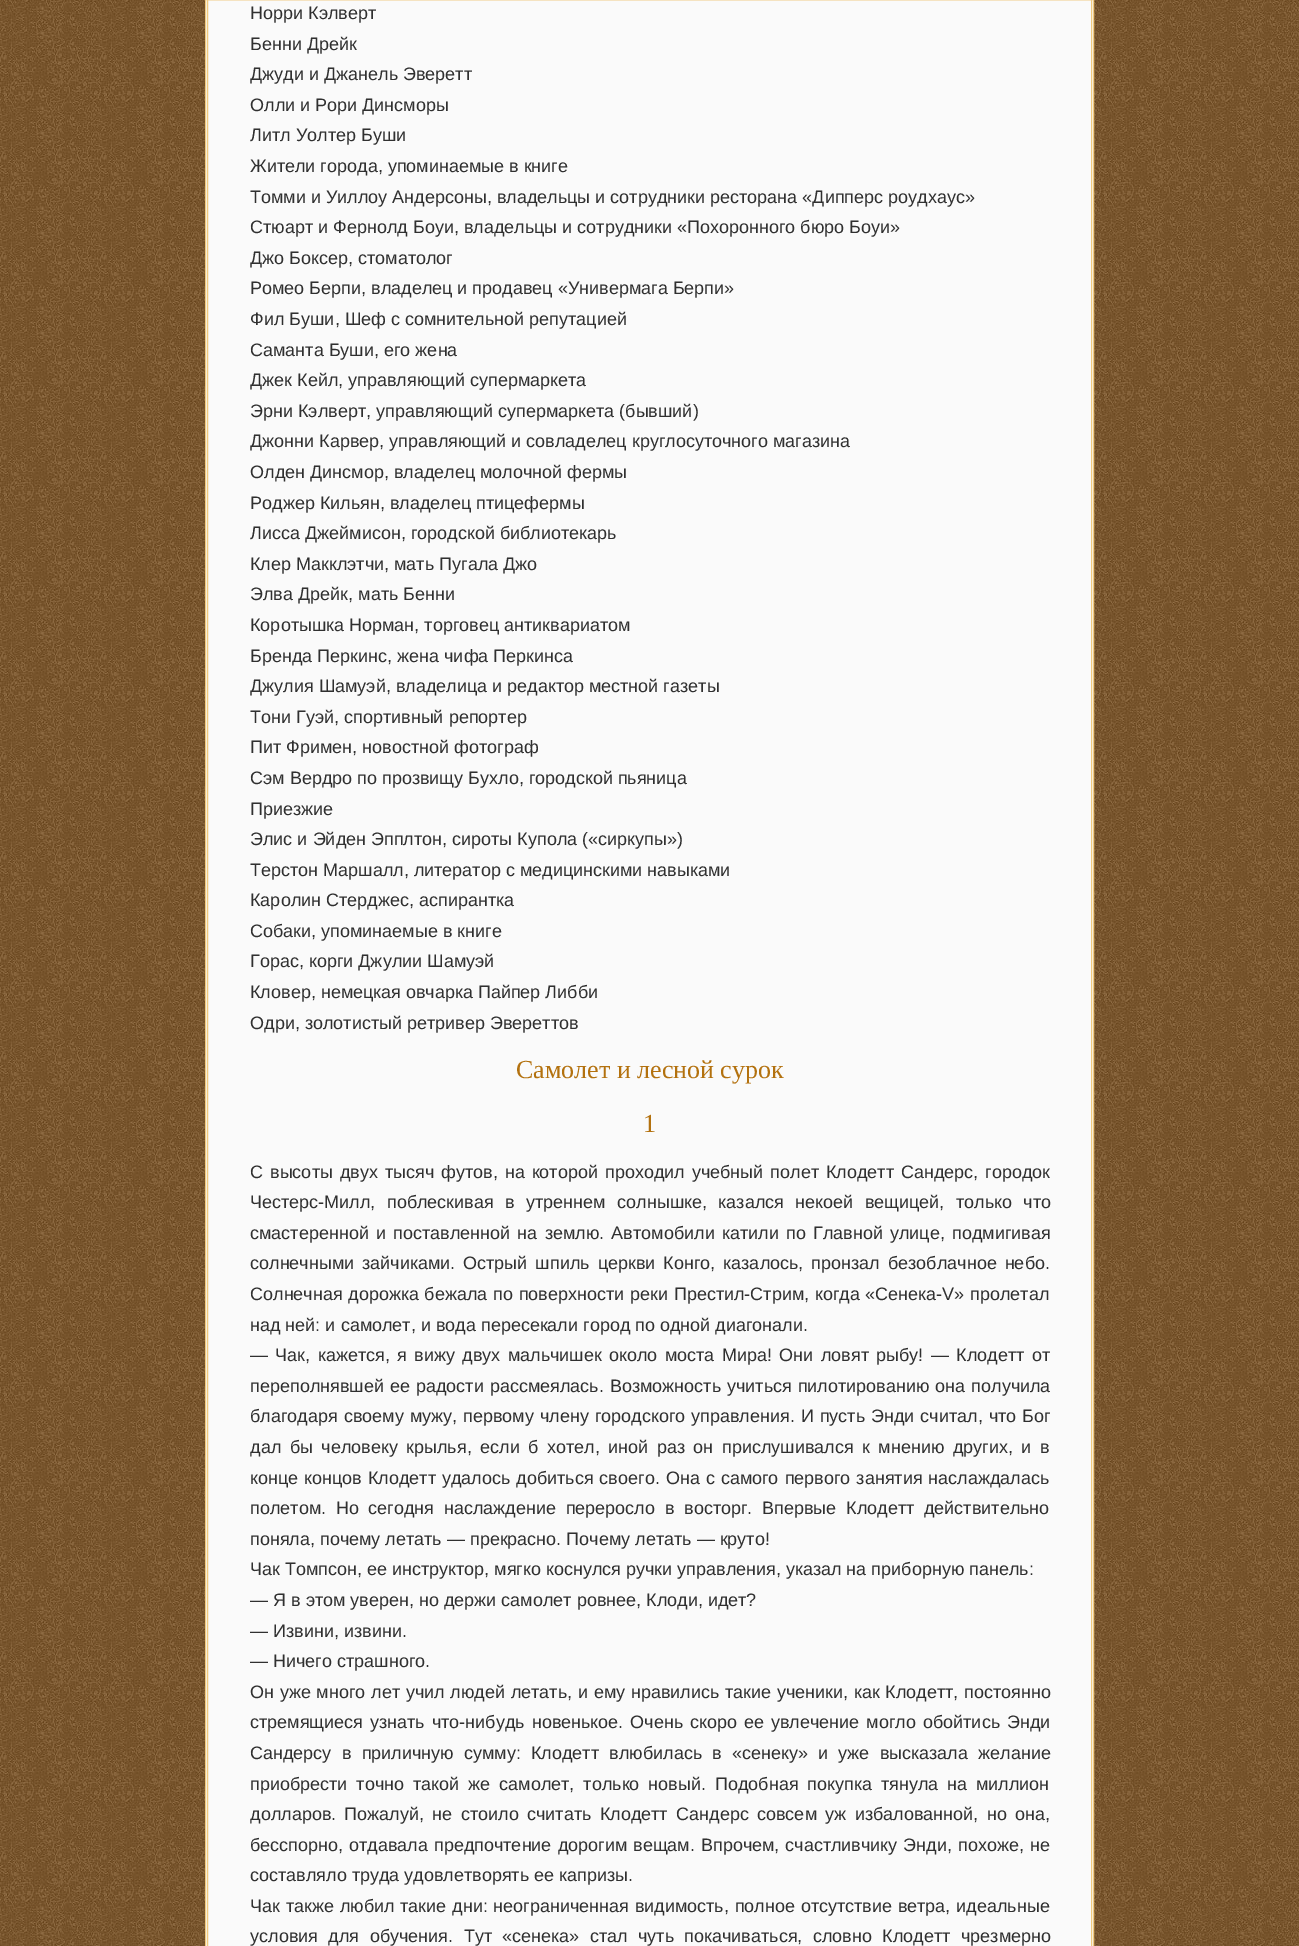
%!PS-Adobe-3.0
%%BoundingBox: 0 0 1299 1946
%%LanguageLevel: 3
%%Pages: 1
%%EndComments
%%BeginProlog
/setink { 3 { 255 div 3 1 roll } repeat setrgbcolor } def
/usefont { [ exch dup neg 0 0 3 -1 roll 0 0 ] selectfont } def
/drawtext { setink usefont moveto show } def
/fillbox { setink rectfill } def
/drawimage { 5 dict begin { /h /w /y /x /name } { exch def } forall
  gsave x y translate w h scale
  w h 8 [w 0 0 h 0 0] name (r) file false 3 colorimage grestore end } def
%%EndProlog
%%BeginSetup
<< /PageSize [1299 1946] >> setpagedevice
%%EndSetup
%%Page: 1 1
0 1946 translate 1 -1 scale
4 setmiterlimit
0 0 1299 1946 255 255 255 fillbox
(assets/img1.rgb) 0 0 1299 1946 drawimage
250 250 250 setink
205.5 -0.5 moveto 1093.5 -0.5 lineto 1093.5 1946.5 lineto 205.5 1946.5 lineto closepath gsave fill grestore
241 202 127 setink
stroke
207.5 -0.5 884 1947 rectstroke
(Норри Кэлверт) 250 19 /LiberationSans-Regular 18 48 48 48 drawtext
(Бенни Дрейк) 250 50 /LiberationSans-Regular 18 48 48 48 drawtext
(Джуди и Джанель Эверетт) 250 80 /LiberationSans-Regular 18 48 48 48 drawtext
(Олли и Рори Динсморы) 250 111 /LiberationSans-Regular 18 48 48 48 drawtext
(Литл Уолтер Буши) 250 141 /LiberationSans-Regular 18 48 48 48 drawtext
(Жители города, упоминаемые в книге) 250 172 /LiberationSans-Regular 18 48 48 48 drawtext
(Томми и Уиллоу Андерсоны, владельцы и сотрудники ресторана «Дипперс роудхаус») 250 203 /LiberationSans-Regular 18 48 48 48 drawtext
(Стюарт и Фернолд Боуи, владельцы и сотрудники «Похоронного бюро Боуи») 250 233 /LiberationSans-Regular 18 48 48 48 drawtext
(Джо Боксер, стоматолог) 250 264 /LiberationSans-Regular 18 48 48 48 drawtext
(Ромео Берпи, владелец и продавец «Универмага Берпи») 250 294 /LiberationSans-Regular 18 48 48 48 drawtext
(Фил Буши, Шеф с сомнительной репутацией) 250 325 /LiberationSans-Regular 18 48 48 48 drawtext
(Саманта Буши, его жена) 250 356 /LiberationSans-Regular 18 48 48 48 drawtext
(Джек Кейл, управляющий супермаркета) 250 386 /LiberationSans-Regular 18 48 48 48 drawtext
(Эрни Кэлверт, управляющий супермаркета \(бывший\)) 250 417 /LiberationSans-Regular 18 48 48 48 drawtext
(Джонни Карвер, управляющий и совладелец круглосуточного магазина) 250 447 /LiberationSans-Regular 18 48 48 48 drawtext
(Олден Динсмор, владелец молочной фермы) 250 478 /LiberationSans-Regular 18 48 48 48 drawtext
(Роджер Кильян, владелец птицефермы) 250 509 /LiberationSans-Regular 18 48 48 48 drawtext
(Лисса Джеймисон, городской библиотекарь) 250 539 /LiberationSans-Regular 18 48 48 48 drawtext
(Клер Макклэтчи, мать Пугала Джо) 250 570 /LiberationSans-Regular 18 48 48 48 drawtext
(Элва Дрейк, мать Бенни) 250 600 /LiberationSans-Regular 18 48 48 48 drawtext
(Коротышка Норман, торговец антиквариатом) 250 631 /LiberationSans-Regular 18 48 48 48 drawtext
(Бренда Перкинс, жена чифа Перкинса) 250 662 /LiberationSans-Regular 18 48 48 48 drawtext
(Джулия Шамуэй, владелица и редактор местной газеты) 250 692 /LiberationSans-Regular 18 48 48 48 drawtext
(Тони Гуэй, спортивный репортер) 250 723 /LiberationSans-Regular 18 48 48 48 drawtext
(Пит Фримен, новостной фотограф) 250 753 /LiberationSans-Regular 18 48 48 48 drawtext
(Сэм Вердро по прозвищу Бухло, городской пьяница) 250 784 /LiberationSans-Regular 18 48 48 48 drawtext
(Приезжие) 250 815 /LiberationSans-Regular 18 48 48 48 drawtext
(Элис и Эйден Эпплтон, сироты Купола \(«сиркупы»\)) 250 845 /LiberationSans-Regular 18 48 48 48 drawtext
(Терстон Маршалл, литератор с медицинскими навыками) 250 876 /LiberationSans-Regular 18 48 48 48 drawtext
(Каролин Стерджес, аспирантка) 250 906 /LiberationSans-Regular 18 48 48 48 drawtext
(Собаки, упоминаемые в книге) 250 937 /LiberationSans-Regular 18 48 48 48 drawtext
(Горас, корги Джулии Шамуэй) 250 967 /LiberationSans-Regular 18 48 48 48 drawtext
(Кловер, немецкая овчарка Пайпер Либби) 250 998 /LiberationSans-Regular 18 48 48 48 drawtext
(Одри, золотистый ретривер Эвереттов) 250 1029 /LiberationSans-Regular 18 48 48 48 drawtext
(Самолет и лесной сурок) 516 1078 /LiberationSerif-Regular 26 179 113 14 drawtext
(1) 643 1132 /LiberationSerif-Regular 26 179 113 14 drawtext
/LiberationSans-Regular 18 usefont
48 48 48 setink
250 1178 moveto 2 0 32 (С высоты двух тысяч футов, на которой проходил учебный полет Клодетт Сандерс, городок) widthshow
250 1208 moveto 6.5 0 32 (Честерс-Милл, поблескивая в утреннем солнышке, казался некоей вещицей, только что) widthshow
250 1239 moveto 2.25 0 32 (смастеренной и поставленной на землю. Автомобили катили по Главной улице, подмигивая) widthshow
250 1269 moveto 3 0 32 (солнечными зайчиками. Острый шпиль церкви Конго, казалось, пронзал безоблачное небо.) widthshow
250 1300 moveto 0.75 0 32 (Солнечная дорожка бежала по поверхности реки Престил-Стрим, когда «Сенека-V» пролетал) widthshow
(над ней: и самолет, и вода пересекали город по одной диагонали.) 250 1331 /LiberationSans-Regular 18 48 48 48 drawtext
250 1361 moveto 2.4 0 32 (— Чак, кажется, я вижу двух мальчишек около моста Мира! Они ловят рыбу! — Клодетт от) widthshow
250 1392 moveto 1 0 32 (переполнявшей ее радости рассмеялась. Возможность учиться пилотированию она получила) widthshow
250 1422 moveto 1 0 32 (благодаря своему мужу, первому члену городского управления. И пусть Энди считал, что Бог) widthshow
250 1453 moveto 3.5 0 32 (дал бы человеку крылья, если б хотел, иной раз он прислушивался к мнению других, и в) widthshow
250 1484 moveto 1 0 32 (конце концов Клодетт удалось добиться своего. Она с самого первого занятия наслаждалась) widthshow
250 1514 moveto 4.75 0 32 (полетом. Но сегодня наслаждение переросло в восторг. Впервые Клодетт действительно) widthshow
(поняла, почему летать — прекрасно. Почему летать — круто!) 250 1545 /LiberationSans-Regular 18 48 48 48 drawtext
(Чак Томпсон, ее инструктор, мягко коснулся ручки управления, указал на приборную панель:) 250 1575 /LiberationSans-Regular 18 48 48 48 drawtext
(— Я в этом уверен, но держи самолет ровнее, Клоди, идет?) 250 1606 /LiberationSans-Regular 18 48 48 48 drawtext
(— Извини, извини.) 250 1637 /LiberationSans-Regular 18 48 48 48 drawtext
(— Ничего страшного.) 250 1667 /LiberationSans-Regular 18 48 48 48 drawtext
250 1698 moveto 0.75 0 32 (Он уже много лет учил людей летать, и ему нравились такие ученики, как Клодетт, постоянно) widthshow
250 1728 moveto 2 0 32 (стремящиеся узнать что-нибудь новенькое. Очень скоро ее увлечение могло обойтись Энди) widthshow
250 1759 moveto 5.25 0 32 (Сандерсу в приличную сумму: Клодетт влюбилась в «сенеку» и уже высказала желание) widthshow
250 1790 moveto 4 0 32 (приобрести точно такой же самолет, только новый. Подобная покупка тянула на миллион) widthshow
250 1820 moveto 3.4 0 32 (долларов. Пожалуй, не стоило считать Клодетт Сандерс совсем уж избалованной, но она,) widthshow
250 1851 moveto 1 0 32 (бесспорно, отдавала предпочтение дорогим вещам. Впрочем, счастливчику Энди, похоже, не) widthshow
(составляло труда удовлетворять ее капризы.) 250 1881 /LiberationSans-Regular 18 48 48 48 drawtext
250 1912 moveto 0.75 0 32 (Чак также любил такие дни: неограниченная видимость, полное отсутствие ветра, идеальные) widthshow
250 1942 moveto 5.5 0 32 (условия для обучения. Тут «сенека» стал чуть покачиваться, словно Клодетт чрезмерно) widthshow
showpage
%%EOF
